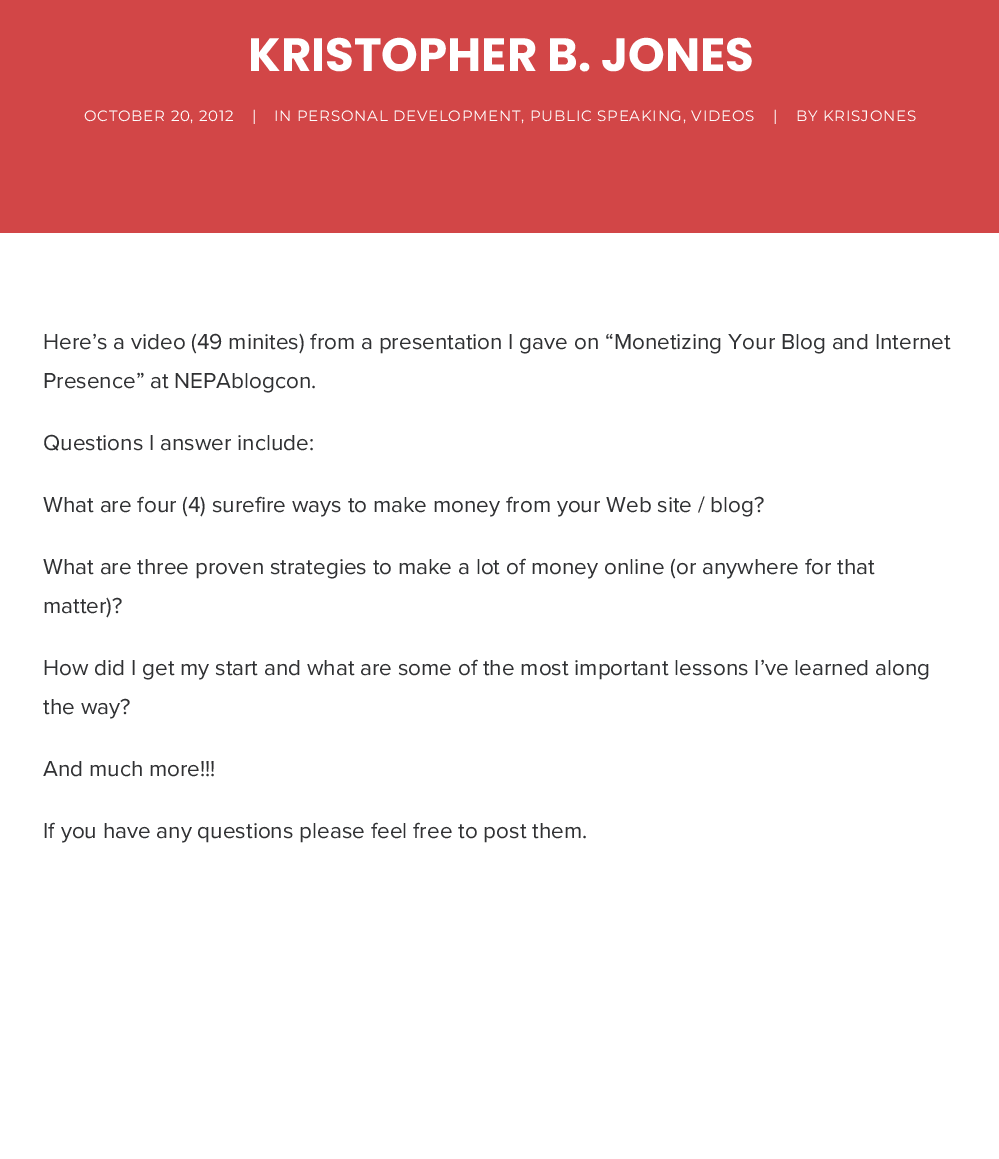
%!PS-Adobe-3.0
%%BoundingBox: 0 0 999 1159
%%LanguageLevel: 3
%%Pages: 1
%%EndComments
%%BeginProlog
/setink { 3 { 255 div 3 1 roll } repeat setrgbcolor } def
/usefont { [ exch dup neg 0 0 3 -1 roll 0 0 ] selectfont } def
/drawtext { setink usefont moveto show } def
/fillbox { setink rectfill } def
%%EndProlog
%%BeginSetup
<< /PageSize [999 1159] >> setpagedevice
%%EndSetup
%%Page: 1 1
0 1159 translate 1 -1 scale
4 setmiterlimit
0 0 999 1159 210 70 71 fillbox
(KRISTOPHER B. JONES) 248 71 /Poppins-Bold 46.75 255 255 255 drawtext
/Montserrat-Regular 15 usefont
84 121 moveto 0.75 0 (OCTOBER 20, 2012) ashow
252 121 moveto 0.75 0 (|) ashow
274 121 moveto 0.75 0 (IN PERSONAL DEVELOPMENT, PUBLIC SPEAKING, VIDEOS) ashow
773 121 moveto 0.75 0 (|) ashow
796 121 moveto 0.75 0 (BY KRISJONES) ashow
0 233 999 926 255 255 255 fillbox
(Here’s a video \(49 minites\) from a presentation I gave on “Monetizing Your Blog and Internet) 43 349 /ProximaNova-Regular 22.5 48 49 51 drawtext
(Presence” at NEPAblogcon.) 43 388 /ProximaNova-Regular 22.5 48 49 51 drawtext
(Questions I answer include:) 43 450 /ProximaNova-Regular 22.5 48 49 51 drawtext
(What are four \(4\) surefire ways to make money from your Web site / blog?) 43 512 /ProximaNova-Regular 22.5 48 49 51 drawtext
(What are three proven strategies to make a lot of money online \(or anywhere for that) 43 574 /ProximaNova-Regular 22.5 48 49 51 drawtext
(matter\)?) 43 613 /ProximaNova-Regular 22.5 48 49 51 drawtext
(How did I get my start and what are some of the most important lessons I’ve learned along) 43 675 /ProximaNova-Regular 22.5 48 49 51 drawtext
(the way?) 43 714 /ProximaNova-Regular 22.5 48 49 51 drawtext
(And much more!!!) 43 776 /ProximaNova-Regular 22.5 48 49 51 drawtext
(If you have any questions please feel free to post them.) 43 838 /ProximaNova-Regular 22.5 48 49 51 drawtext
showpage
%%EOF
